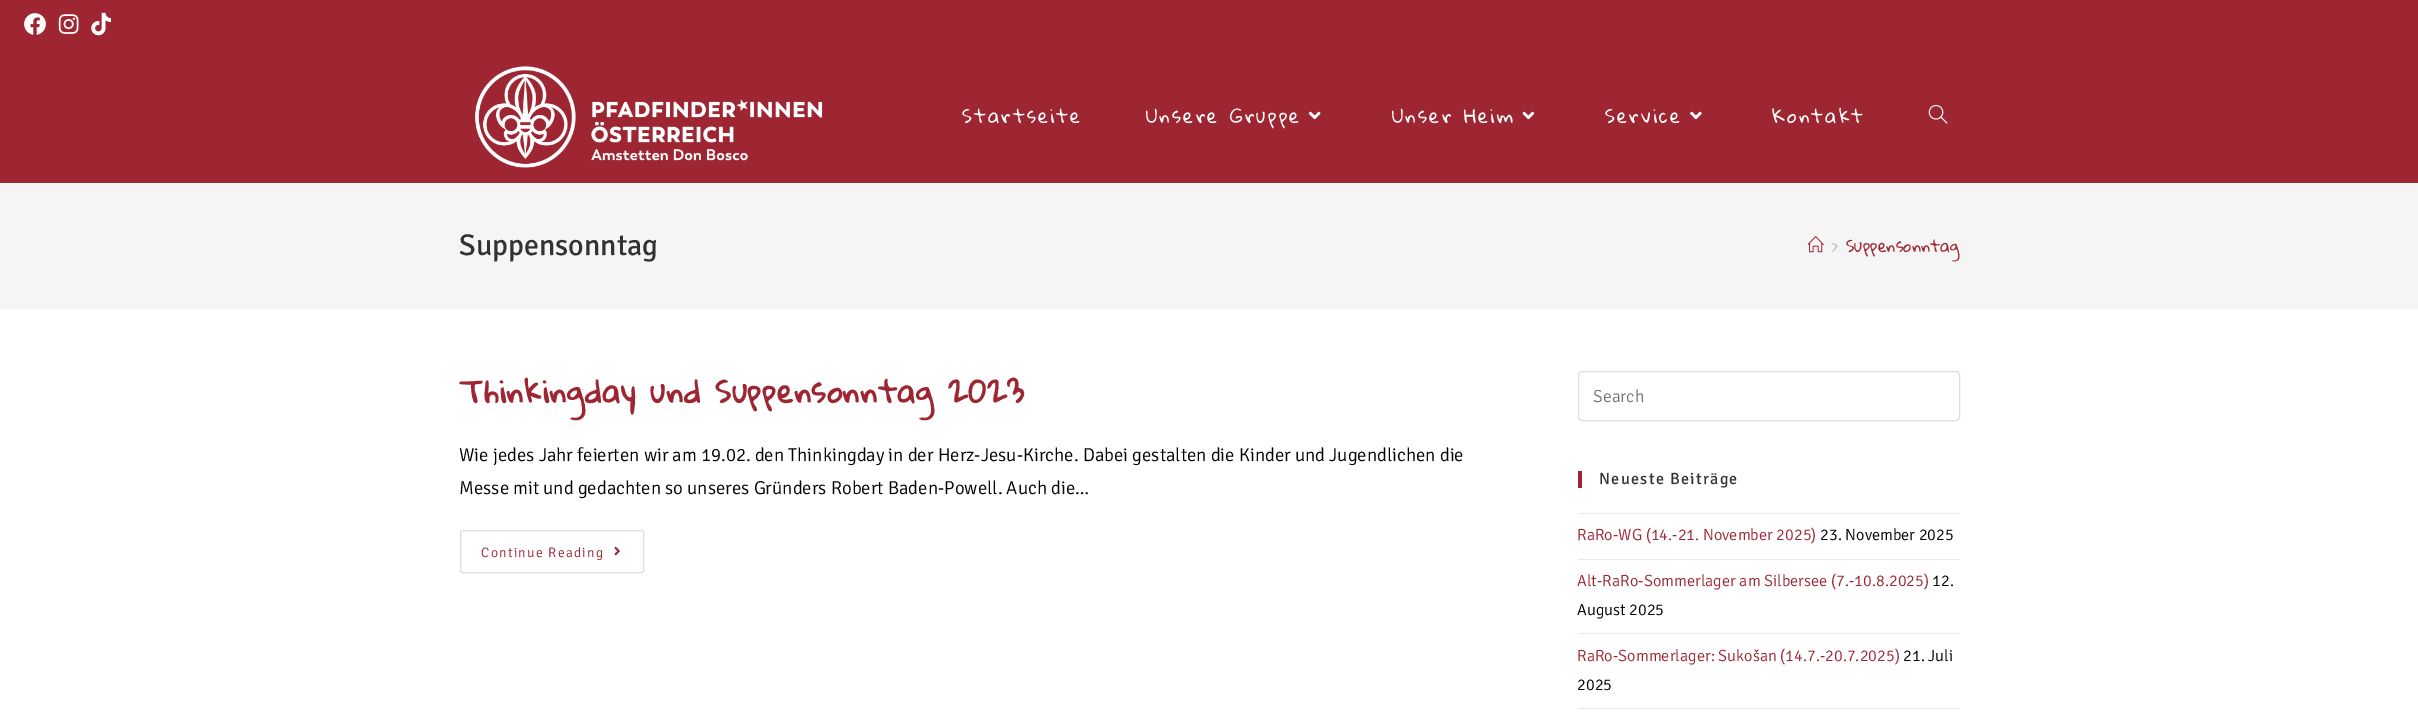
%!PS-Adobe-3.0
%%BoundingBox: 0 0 2418 725
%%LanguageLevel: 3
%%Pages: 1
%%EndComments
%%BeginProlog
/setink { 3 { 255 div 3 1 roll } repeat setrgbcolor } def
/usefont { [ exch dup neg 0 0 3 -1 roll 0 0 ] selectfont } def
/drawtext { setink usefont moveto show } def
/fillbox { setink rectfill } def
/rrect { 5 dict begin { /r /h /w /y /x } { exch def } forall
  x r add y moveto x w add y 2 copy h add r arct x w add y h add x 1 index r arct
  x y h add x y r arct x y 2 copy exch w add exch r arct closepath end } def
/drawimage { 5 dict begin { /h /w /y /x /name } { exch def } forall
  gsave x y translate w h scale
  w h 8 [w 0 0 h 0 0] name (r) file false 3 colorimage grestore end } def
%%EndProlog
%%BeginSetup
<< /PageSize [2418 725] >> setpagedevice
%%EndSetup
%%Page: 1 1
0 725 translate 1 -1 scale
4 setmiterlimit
0 0 2418 725 255 255 255 fillbox
0 0 2418 183 157 38 50 fillbox
(assets/img1.rgb) 24 13 22 22 drawimage
(assets/img2.rgb) 58 14 21 20 drawimage
(assets/img3.rgb) 91 12 20 24 drawimage
(assets/img4.rgb) 475 66 348 102 drawimage
/GloriaHallelujah-Regular 18.75 usefont
255 255 255 setink
962 123 moveto 2.1 0 (Startseite) ashow
1146 123 moveto 2.1 0 (Unsere Gruppe) ashow
(assets/img5.rgb) 1308 111 13 9 drawimage
1392 123 moveto 2.1 0 (Unser Heim) ashow
(assets/img6.rgb) 1522 111 13 9 drawimage
1605 123 moveto 2.1 0 (Service) ashow
(assets/img7.rgb) 1690 111 12 9 drawimage
1772 123 moveto 2.1 0 (Kontakt) ashow
(assets/img8.rgb) 1928 104 20 20 drawimage
0 183 2418 126 245 245 245 fillbox
(Suppensonntag) 459 255 /Signika-Regular 30 51 51 51 drawtext
(assets/img9.rgb) 1808 236 16 17 drawimage
(>) 1831 252 /GloriaHallelujah-Regular 16.25 198 198 198 drawtext
(Suppensonntag) 1846 252 /GloriaHallelujah-Regular 16.25 157 38 50 drawtext
/GloriaHallelujah-Bold 30 usefont
459 403 moveto 0.75 0 (Thinkingday und Suppensonntag 2023) ashow
(Wie jedes Jahr feierten wir am 19.02. den Thinkingday in der Herz-Jesu-Kirche. Dabei gestalten die Kinder und Jugendlichen die) 459 461 /Signika-Light 18.75 0 0 0 drawtext
(Messe mit und gedachten so unseres Gründers Robert Baden-Powell. Auch die…) 459 494 /Signika-Light 18.75 0 0 0 drawtext
221 221 221 setink
460.5 530.5 183 42 2 rrect stroke
/Signika-Light 13.75 usefont
157 38 50 setink
481 557 moveto 1.25 0 (Continue Reading) ashow
(assets/img10.rgb) 614 546 6 10 drawimage
221 221 221 setink
1578.5 371.5 381 49 3.5 rrect stroke
(Search) 1593 402 /Signika-Light 17.5 117 117 117 drawtext
1578 471 4 17 157 38 50 fillbox
/Signika-Regular 16.25 usefont
51 51 51 setink
1599 484 moveto 1.25 0 (Neueste Beiträge) ashow
1578 513 382 1 233 233 233 fillbox
1578 559 382 1 233 233 233 fillbox
(RaRo-WG \(14.-21. November 2025\)) 1577 540 /Signika-Light 16.25 157 38 50 drawtext
(23. November 2025) 1820 540 /Signika-Light 16.25 0 0 0 drawtext
1578 633 382 1 233 233 233 fillbox
(Alt-RaRo-Sommerlager am Silbersee \(7.-10.8.2025\)) 1577 586 /Signika-Light 16.25 157 38 50 drawtext
(12.) 1932 586 /Signika-Light 16.25 0 0 0 drawtext
(August 2025) 1577 615 /Signika-Light 16.25 0 0 0 drawtext
1578 708 382 1 233 233 233 fillbox
(RaRo-Sommerlager: Sukošan \(14.7.-20.7.2025\)) 1577 661 /Signika-Light 16.25 157 38 50 drawtext
(21. Juli) 1903 661 /Signika-Light 16.25 0 0 0 drawtext
(2025) 1577 690 /Signika-Light 16.25 0 0 0 drawtext
showpage
%%EOF
